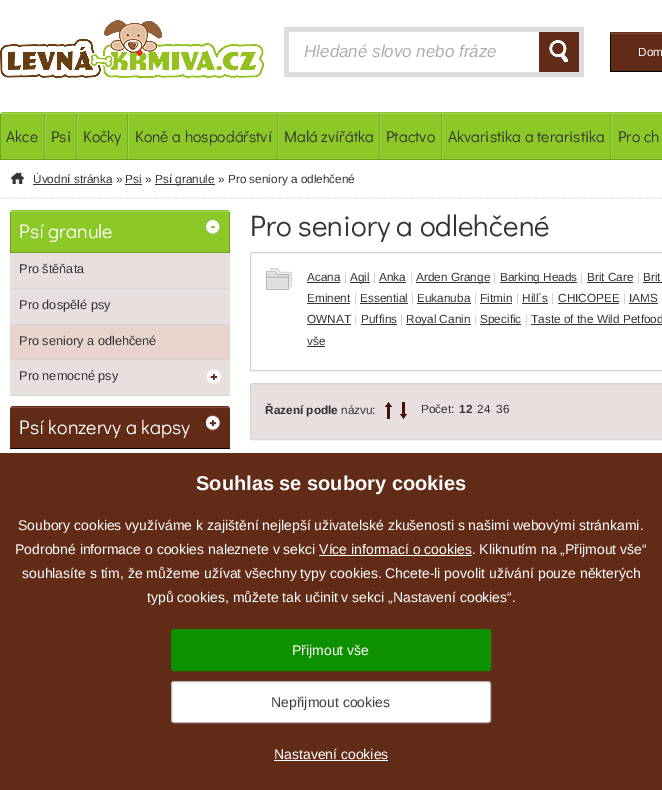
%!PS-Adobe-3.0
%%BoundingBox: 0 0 662 790
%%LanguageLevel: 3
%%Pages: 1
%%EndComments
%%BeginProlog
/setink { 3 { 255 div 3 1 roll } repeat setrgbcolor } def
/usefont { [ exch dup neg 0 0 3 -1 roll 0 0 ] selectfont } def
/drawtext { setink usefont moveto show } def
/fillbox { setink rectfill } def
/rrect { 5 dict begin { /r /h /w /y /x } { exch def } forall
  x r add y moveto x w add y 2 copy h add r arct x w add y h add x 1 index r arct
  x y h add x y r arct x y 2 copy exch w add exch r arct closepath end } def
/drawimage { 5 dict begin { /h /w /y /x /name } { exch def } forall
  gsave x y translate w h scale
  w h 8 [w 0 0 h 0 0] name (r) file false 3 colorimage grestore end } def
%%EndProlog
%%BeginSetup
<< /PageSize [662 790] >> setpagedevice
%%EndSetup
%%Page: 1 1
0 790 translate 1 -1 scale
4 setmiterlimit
0 0 662 790 255 255 255 fillbox
(assets/img1.rgb) 0 20 264 58 drawimage
284 27 300 50 221 221 221 fillbox
289 32 250 40 255 255 255 fillbox
(Hledané slovo nebo fráze) 304 57 /LiberationSans-Italic 17 175 175 175 drawtext
(assets/img2.rgb) 539 32 40 40 drawimage
610 32 1 1 95 46 31 fillbox
(assets/img3.rgb) 610 32 52 40 drawimage
(Dom) 638 56 /LiberationSans-Regular 11.8 255 255 255 drawtext
(assets/img4.rgb) 0 112 662 48 drawimage
(assets/img5.rgb) 44 112 1 48 drawimage
(Akce) 6 142 /DidactGothic-Regular 15.75 51 51 51 drawtext
(assets/img5.rgb) 76 112 1 48 drawimage
(assets/img6.rgb) 45 112 1 48 drawimage
(Psi) 51 142 /DidactGothic-Regular 15.75 51 51 51 drawtext
(assets/img5.rgb) 127 112 1 48 drawimage
(assets/img6.rgb) 77 112 1 48 drawimage
(Kočky) 83 142 /DidactGothic-Regular 15.75 51 51 51 drawtext
(assets/img5.rgb) 277 112 1 48 drawimage
(assets/img6.rgb) 128 112 1 48 drawimage
(Koně a hospodářství) 135 142 /DidactGothic-Regular 15.75 51 51 51 drawtext
(assets/img5.rgb) 379 112 1 48 drawimage
(assets/img6.rgb) 278 112 1 48 drawimage
(Malá zvířátka) 284 142 /DidactGothic-Regular 15.75 51 51 51 drawtext
(assets/img5.rgb) 441 112 1 48 drawimage
(assets/img6.rgb) 380 112 1 48 drawimage
(Ptactvo) 386 142 /DidactGothic-Regular 15.75 51 51 51 drawtext
(assets/img5.rgb) 610 112 1 48 drawimage
(assets/img6.rgb) 442 112 1 48 drawimage
(Akvaristika a teraristika) 448 142 /DidactGothic-Regular 15.75 51 51 51 drawtext
(assets/img6.rgb) 611 112 1 48 drawimage
(Pro ch) 618 142 /DidactGothic-Regular 15.75 51 51 51 drawtext
(assets/img7.rgb) 0 197 662 2 drawimage
(assets/img8.rgb) 11 172 13 12 drawimage
(Úvodní stránka » Psi ») 33 183 /LiberationSans-Regular 11.8 51 51 51 drawtext
33 184 79 1 51 51 51 fillbox
155 184 60 1 51 51 51 fillbox
(Psí granule » Pro seniory a odlehčené) 155 183 /LiberationSans-Regular 11.8 51 51 51 drawtext
125 184 17 1 51 51 51 fillbox
(assets/img9.rgb) 10 210 220 42 drawimage
10 252 220 1 113 161 34 fillbox
(Psí granule) 19 238 /DidactGothic-Regular 19.75 255 255 255 drawtext
10 253 220 35 231 224 222 fillbox
10 288 220 1 213 213 213 fillbox
(Pro štěňata) 19 273 /LiberationSans-Regular 12.75 51 51 51 drawtext
10 289 220 35 231 224 222 fillbox
10 324 220 1 213 213 213 fillbox
(Pro dospělé psy) 19 309 /LiberationSans-Regular 12.75 51 51 51 drawtext
10 325 220 34 233 211 205 fillbox
10 359 220 1 213 213 213 fillbox
(Pro seniory a odlehčené) 19 345 /LiberationSans-Regular 12.75 51 51 51 drawtext
10 360 220 35 231 224 222 fillbox
(assets/img10.rgb) 207 369 15 15 drawimage
10 395 220 1 213 213 213 fillbox
(Pro nemocné psy) 19 380 /LiberationSans-Regular 12.75 51 51 51 drawtext
(assets/img11.rgb) 10 406 220 42 drawimage
10 448 220 1 0 0 0 fillbox
(Psí konzervy a kapsy) 19 434 /DidactGothic-Regular 19.75 255 255 255 drawtext
(Pro seniory a odlehčené) 250 236 /DidactGothic-Regular 29.5 51 51 51 drawtext
(assets/img12.rgb) 266 268 26 22 drawimage
213 213 213 setink
252 252.5 moveto 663 252.5 lineto 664 252.5 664.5 253 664.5 254 curveto 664.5 370.5 lineto 250.5 370.5 lineto 250.5 254 lineto 250.5 253 251 252.5 252 252.5 curveto closepath stroke
(Acana) 307 281 /LiberationSans-Regular 11.8 51 51 51 drawtext
307 282 33 1 51 51 51 fillbox
(|) 344 281 /LiberationSans-Regular 11.8 213 213 213 drawtext
350 282 20 1 51 51 51 fillbox
(Agil) 350 281 /LiberationSans-Regular 11.8 51 51 51 drawtext
(|) 373 281 /LiberationSans-Regular 11.8 213 213 213 drawtext
(Anka) 379 281 /LiberationSans-Regular 11.8 51 51 51 drawtext
379 282 27 1 51 51 51 fillbox
(|) 410 281 /LiberationSans-Regular 11.8 213 213 213 drawtext
416 282 74 1 51 51 51 fillbox
(Arden Grange) 416 281 /LiberationSans-Regular 11.8 51 51 51 drawtext
(|) 493 281 /LiberationSans-Regular 11.8 213 213 213 drawtext
500 282 77 1 51 51 51 fillbox
(Barking Heads) 500 281 /LiberationSans-Regular 11.8 51 51 51 drawtext
(|) 580 281 /LiberationSans-Regular 11.8 213 213 213 drawtext
(Brit Care) 587 281 /LiberationSans-Regular 11.8 51 51 51 drawtext
587 282 46 1 51 51 51 fillbox
(|) 637 281 /LiberationSans-Regular 11.8 213 213 213 drawtext
(Brit) 643 281 /LiberationSans-Regular 11.8 51 51 51 drawtext
643 282 19 1 51 51 51 fillbox
(Eminent) 307 302 /LiberationSans-Regular 11.8 51 51 51 drawtext
307 303 43 1 51 51 51 fillbox
(|) 354 302 /LiberationSans-Regular 11.8 213 213 213 drawtext
(Essential) 360 302 /LiberationSans-Regular 11.8 51 51 51 drawtext
360 303 48 1 51 51 51 fillbox
(|) 411 302 /LiberationSans-Regular 11.8 213 213 213 drawtext
(Eukanuba) 417 302 /LiberationSans-Regular 11.8 51 51 51 drawtext
417 303 54 1 51 51 51 fillbox
(|) 474 302 /LiberationSans-Regular 11.8 213 213 213 drawtext
(Fitmin) 480 302 /LiberationSans-Regular 11.8 51 51 51 drawtext
480 303 32 1 51 51 51 fillbox
(|) 516 302 /LiberationSans-Regular 11.8 213 213 213 drawtext
(Hill´s) 522 302 /LiberationSans-Regular 11.8 51 51 51 drawtext
522 303 26 1 51 51 51 fillbox
(|) 551 302 /LiberationSans-Regular 11.8 213 213 213 drawtext
(CHICOPEE) 558 302 /LiberationSans-Regular 11.8 51 51 51 drawtext
558 303 61 1 51 51 51 fillbox
(|) 623 302 /LiberationSans-Regular 11.8 213 213 213 drawtext
(IAMS) 629 302 /LiberationSans-Regular 11.8 51 51 51 drawtext
629 303 29 1 51 51 51 fillbox
(OWNAT) 307 323 /LiberationSans-Regular 11.8 51 51 51 drawtext
307 324 44 1 51 51 51 fillbox
(|) 354 323 /LiberationSans-Regular 11.8 213 213 213 drawtext
(Puffins) 361 323 /LiberationSans-Regular 11.8 51 51 51 drawtext
361 324 36 1 51 51 51 fillbox
(|) 400 323 /LiberationSans-Regular 11.8 213 213 213 drawtext
406 324 65 1 51 51 51 fillbox
(Royal Canin) 406 323 /LiberationSans-Regular 11.8 51 51 51 drawtext
(|) 474 323 /LiberationSans-Regular 11.8 213 213 213 drawtext
480 324 41 1 51 51 51 fillbox
(Specific) 480 323 /LiberationSans-Regular 11.8 51 51 51 drawtext
(|) 525 323 /LiberationSans-Regular 11.8 213 213 213 drawtext
(Taste of the Wild Petfood) 531 323 /LiberationSans-Regular 11.8 51 51 51 drawtext
531 324 131 1 51 51 51 fillbox
(vše) 307 345 /LiberationSans-Regular 11.8 51 51 51 drawtext
307 346 18 1 51 51 51 fillbox
231 224 222 setink
250.5 383.5 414 56 1.5 rrect gsave fill grestore
213 213 213 setink
stroke
(Řazení podle) 265 414 /LiberationSans-Bold 11.8 51 51 51 drawtext
(názvu:) 341 414 /LiberationSans-Regular 11.8 51 51 51 drawtext
(assets/img13.rgb) 385 402 7 17 drawimage
(assets/img14.rgb) 400 402 7 17 drawimage
(Počet:) 421 413 /LiberationSans-Regular 11.8 51 51 51 drawtext
(12) 459 413 /LiberationSans-Bold 11.8 51 51 51 drawtext
(24) 477 413 /LiberationSans-Regular 11.8 51 51 51 drawtext
(36) 496 413 /LiberationSans-Regular 11.8 51 51 51 drawtext
0 453 662 337 98 43 23 fillbox
(Souhlas se soubory cookies) 196 490 /LiberationSans-Bold 20 255 255 255 drawtext
(Soubory cookies využíváme k zajištění nejlepší uživatelské zkušenosti s našimi webovými stránkami.) 18 530 /LiberationSans-Regular 14 255 255 255 drawtext
(Podrobné informace o cookies naleznete v sekci Více informací o cookies. Kliknutím na „Přijmout vše“) 15 554 /LiberationSans-Regular 14 255 255 255 drawtext
319 555 153 1 255 255 255 fillbox
(souhlasíte s tím, že můžeme užívat všechny typy cookies. Chcete-li povolit užívání pouze některých) 22 578 /LiberationSans-Regular 14 255 255 255 drawtext
(typů cookies, můžete tak učinit v sekci „Nastavení cookies“.) 147 602 /LiberationSans-Regular 14 255 255 255 drawtext
14 145 1 setink
171.5 629.5 319 41 2.5 rrect gsave fill grestore
stroke
(Přijmout vše) 292 655 /LiberationSans-Regular 14 255 255 255 drawtext
171.5 681.5 319 41 2.5 rrect gsave fill grestore
180 180 180 setink
stroke
(Nepřijmout cookies) 271 707 /LiberationSans-Regular 14 65 65 65 drawtext
(Nastavení cookies) 274 759 /LiberationSans-Regular 14 255 255 255 drawtext
274 760 114 1 255 255 255 fillbox
showpage
%%EOF
